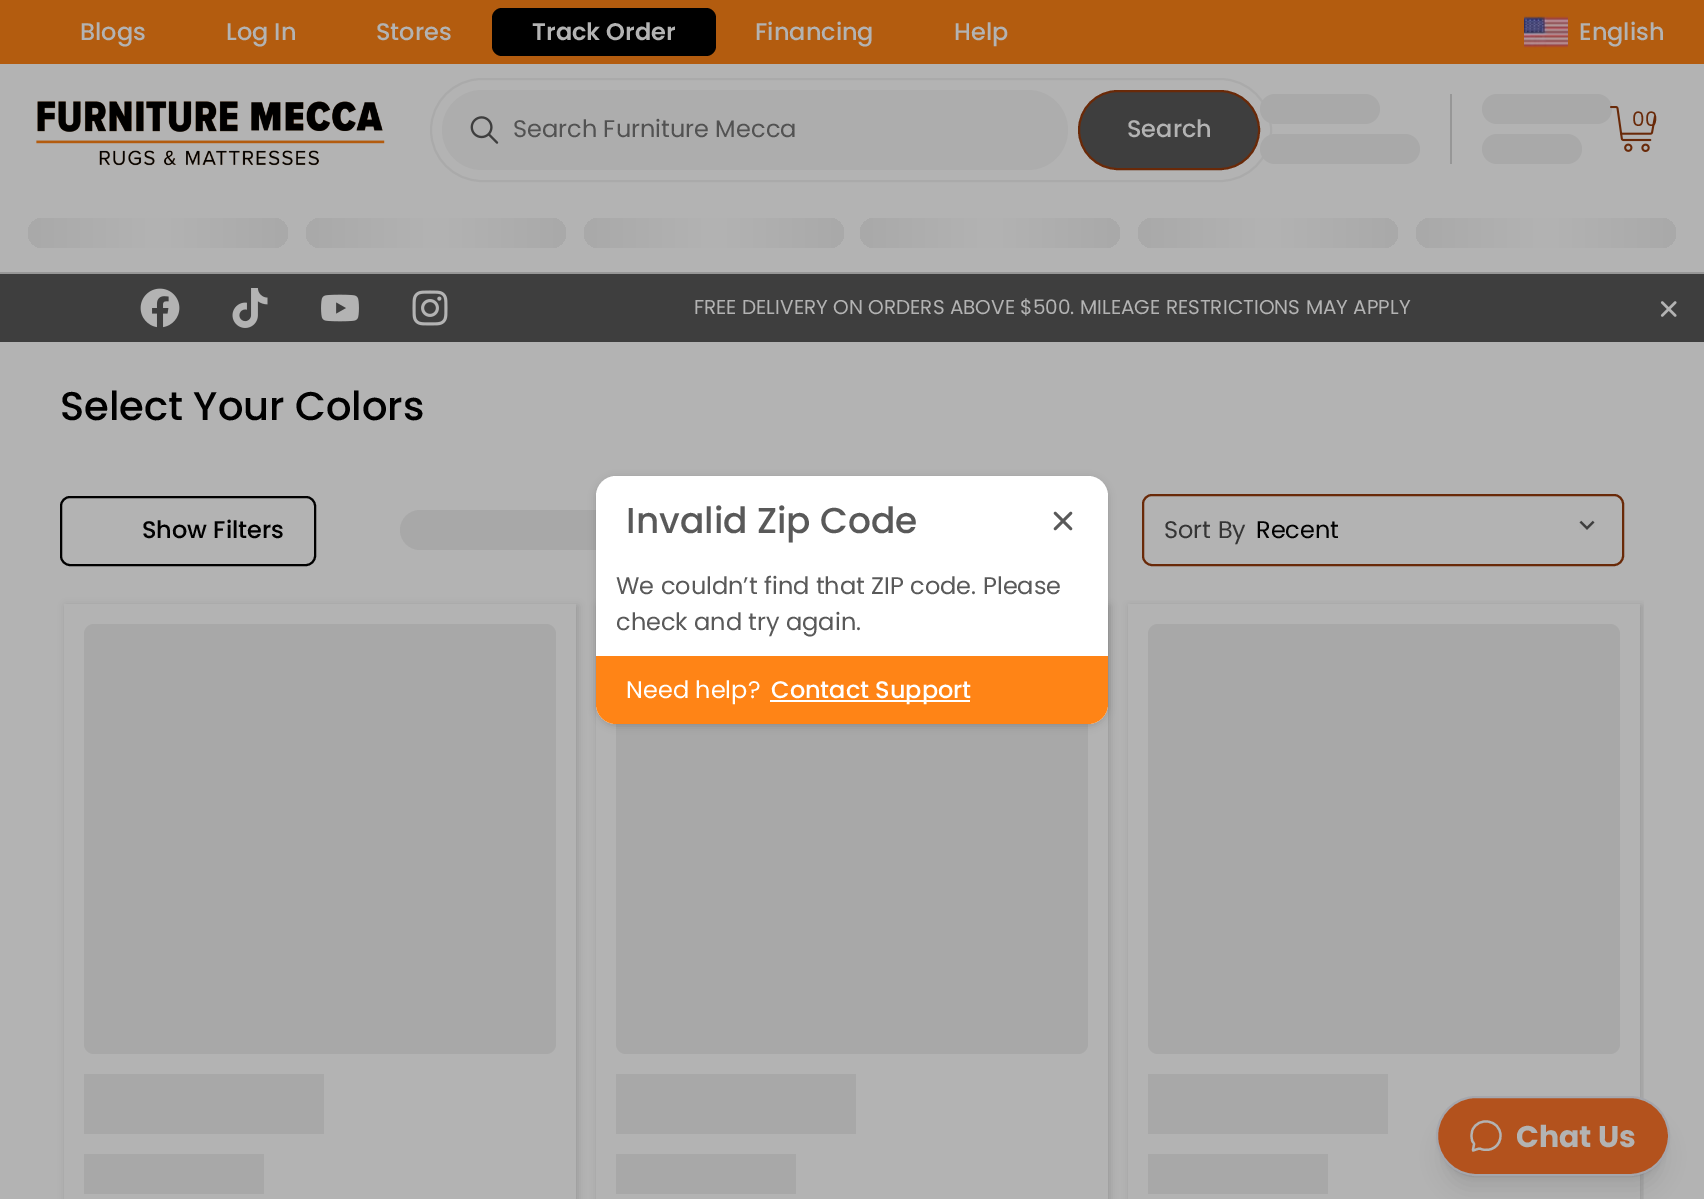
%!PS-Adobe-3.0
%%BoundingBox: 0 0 1704 1199
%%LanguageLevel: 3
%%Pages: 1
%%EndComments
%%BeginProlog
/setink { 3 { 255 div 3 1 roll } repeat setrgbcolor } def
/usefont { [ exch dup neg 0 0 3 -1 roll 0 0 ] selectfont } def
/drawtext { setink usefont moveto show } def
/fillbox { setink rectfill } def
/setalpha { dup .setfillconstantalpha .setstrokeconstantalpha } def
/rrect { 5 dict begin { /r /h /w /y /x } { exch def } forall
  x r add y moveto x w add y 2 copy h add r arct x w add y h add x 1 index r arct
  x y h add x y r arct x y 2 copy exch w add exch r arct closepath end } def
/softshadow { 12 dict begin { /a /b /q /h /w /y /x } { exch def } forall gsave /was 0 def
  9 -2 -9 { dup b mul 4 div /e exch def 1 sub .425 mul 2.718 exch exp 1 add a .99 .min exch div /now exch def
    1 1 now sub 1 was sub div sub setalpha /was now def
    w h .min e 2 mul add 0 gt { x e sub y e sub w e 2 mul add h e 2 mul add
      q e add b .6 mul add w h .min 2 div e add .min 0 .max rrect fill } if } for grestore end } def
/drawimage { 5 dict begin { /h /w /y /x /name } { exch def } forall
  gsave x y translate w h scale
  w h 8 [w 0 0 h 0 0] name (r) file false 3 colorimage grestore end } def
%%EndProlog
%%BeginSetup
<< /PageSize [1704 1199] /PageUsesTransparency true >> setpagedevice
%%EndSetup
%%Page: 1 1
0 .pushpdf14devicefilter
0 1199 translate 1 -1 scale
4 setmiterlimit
0 0 1704 1199 179 179 179 fillbox
0 0 1704 64 179 92 15 fillbox
(Blogs) 80 40 /Poppins-Medium 24 179 179 179 drawtext
0 0 0 setink
492 8 224 48 10 rrect fill
(Financing) 755 40 /Poppins-Medium 24 179 179 179 drawtext
(Log In) 226 40 /Poppins-Medium 24 179 179 179 drawtext
(Stores) 376 40 /Poppins-Medium 24 179 179 179 drawtext
(Track Order) 532 40 /Poppins-SemiBold 24 179 179 179 drawtext
(Help) 954 40 /Poppins-Medium 24 179 179 179 drawtext
(assets/img1.rgb) 1524 16 44 32 drawimage
(English) 1579 40 /Poppins-Medium 24 179 179 179 drawtext
(assets/img2.rgb) 36 101 349 65 drawimage
170 170 170 setink
2 setlinewidth
431 79 840 102 51 rrect stroke
173 173 173 setink
442 90 626 80 40 rrect fill
(assets/img3.rgb) 470 116 29 28 drawimage
(Search Furniture Mecca) 513 137 /Poppins-Regular 24 82 82 82 drawtext
62 62 62 setink
1079 91 180 78 39 rrect gsave fill grestore
105 41 8 setink
stroke
(Search) 1127 137 /Poppins-Medium 24 179 179 179 drawtext
1450 94 2 70 151 151 151 fillbox
169 169 169 setink
1260 94 120 30 15 rrect fill
1260 134 160 30 15 rrect fill
1482 94 130 30 15 rrect fill
1482 134 100 30 15 rrect fill
(assets/img4.rgb) 1610 106 46 46 drawimage
(00) 1632 126 /Poppins-Regular 20 105 41 8 drawtext
0 272 1704 2 151 151 151 fillbox
gsave 28 218 260 30 15 rrect clip newpath
<< /ShadingType 2 /ColorSpace /DeviceRGB /Coords [28 233 288 233] /Extend [true true] /Function << /FunctionType 3 /Domain [0 1] /Functions [<< /FunctionType 2 /Domain [0 1] /C0 [0.663 0.663 0.663] /C1 [0.702 0.702 0.702] /N 1 >> << /FunctionType 2 /Domain [0 1] /C0 [0.702 0.702 0.702] /C1 [0.663 0.663 0.663] /N 1 >>] /Bounds [0.5] /Encode [0 1 0 1] >> >> shfill grestore
gsave 306 218 260 30 15 rrect clip newpath
<< /ShadingType 2 /ColorSpace /DeviceRGB /Coords [306 233 566 233] /Extend [true true] /Function << /FunctionType 3 /Domain [0 1] /Functions [<< /FunctionType 2 /Domain [0 1] /C0 [0.663 0.663 0.663] /C1 [0.702 0.702 0.702] /N 1 >> << /FunctionType 2 /Domain [0 1] /C0 [0.702 0.702 0.702] /C1 [0.663 0.663 0.663] /N 1 >>] /Bounds [0.5] /Encode [0 1 0 1] >> >> shfill grestore
gsave 584 218 260 30 15 rrect clip newpath
<< /ShadingType 2 /ColorSpace /DeviceRGB /Coords [584 233 844 233] /Extend [true true] /Function << /FunctionType 3 /Domain [0 1] /Functions [<< /FunctionType 2 /Domain [0 1] /C0 [0.663 0.663 0.663] /C1 [0.702 0.702 0.702] /N 1 >> << /FunctionType 2 /Domain [0 1] /C0 [0.702 0.702 0.702] /C1 [0.663 0.663 0.663] /N 1 >>] /Bounds [0.5] /Encode [0 1 0 1] >> >> shfill grestore
gsave 860 218 260 30 15 rrect clip newpath
<< /ShadingType 2 /ColorSpace /DeviceRGB /Coords [860 233 1120 233] /Extend [true true] /Function << /FunctionType 3 /Domain [0 1] /Functions [<< /FunctionType 2 /Domain [0 1] /C0 [0.663 0.663 0.663] /C1 [0.702 0.702 0.702] /N 1 >> << /FunctionType 2 /Domain [0 1] /C0 [0.702 0.702 0.702] /C1 [0.663 0.663 0.663] /N 1 >>] /Bounds [0.5] /Encode [0 1 0 1] >> >> shfill grestore
gsave 1138 218 260 30 15 rrect clip newpath
<< /ShadingType 2 /ColorSpace /DeviceRGB /Coords [1138 233 1398 233] /Extend [true true] /Function << /FunctionType 3 /Domain [0 1] /Functions [<< /FunctionType 2 /Domain [0 1] /C0 [0.663 0.663 0.663] /C1 [0.702 0.702 0.702] /N 1 >> << /FunctionType 2 /Domain [0 1] /C0 [0.702 0.702 0.702] /C1 [0.663 0.663 0.663] /N 1 >>] /Bounds [0.5] /Encode [0 1 0 1] >> >> shfill grestore
gsave 1416 218 260 30 15 rrect clip newpath
<< /ShadingType 2 /ColorSpace /DeviceRGB /Coords [1416 233 1676 233] /Extend [true true] /Function << /FunctionType 3 /Domain [0 1] /Functions [<< /FunctionType 2 /Domain [0 1] /C0 [0.663 0.663 0.663] /C1 [0.702 0.702 0.702] /N 1 >> << /FunctionType 2 /Domain [0 1] /C0 [0.702 0.702 0.702] /C1 [0.663 0.663 0.663] /N 1 >>] /Bounds [0.5] /Encode [0 1 0 1] >> >> shfill grestore
168 168 168 setink
400 510 440 40 20 rrect fill
gsave
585 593 moveto 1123 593 lineto 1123 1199 lineto 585 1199 lineto closepath 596 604 moveto 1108 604 lineto 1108 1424 lineto 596 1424 lineto closepath eoclip newpath
0 0 0 setink
598 606 512 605 0 4 0.15 softshadow
grestore
616 624 472 430 10 rrect fill
0 0 0 setink
596 478 512 248 20 4 0.16 softshadow
255 255 255 setink
596 476 512 248 20 rrect fill
(Invalid Zip Code) 626 533 /Poppins-Medium 36 89 89 89 drawtext
(assets/img5.rgb) 1053 511 20 20 drawimage
(We couldn’t find that ZIP code. Please) 616 594 /Poppins-Regular 24 89 89 89 drawtext
(check and try again.) 616 630 /Poppins-Regular 24 89 89 89 drawtext
255 132 22 setink
596 656 moveto 1108 656 lineto 1108 704 lineto 1108 715 1099 724 1088 724 curveto 616 724 lineto 605 724 596 715 596 704 curveto closepath fill
(Need help?) 626 698 /Poppins-Regular 24 255 255 255 drawtext
770 700 200 2 255 255 255 fillbox
(Contact Support) 771 698 /Poppins-Medium 24 255 255 255 drawtext
0 274 1704 68 62 62 62 fillbox
(assets/img6.rgb) 140 288 40 40 drawimage
(assets/img7.rgb) 232 288 36 40 drawimage
(assets/img8.rgb) 321 294 38 28 drawimage
(assets/img9.rgb) 412 290 36 36 drawimage
(FREE DELIVERY ON ORDERS ABOVE $500. MILEAGE RESTRICTIONS MAY APPLY) 694 314 /Poppins-Regular 20 179 179 179 drawtext
(assets/img10.rgb) 1660 301 17 16 drawimage
(Select Your Colors) 60 420 /Poppins-Medium 40 0 0 0 drawtext
61 497 254 68 9 rrect stroke
(Show Filters) 142 538 /Poppins-Medium 24 0 0 0 drawtext
105 41 8 setink
1143 495 480 70 9 rrect stroke
(Sort By) 1164 538 /Poppins-Regular 24 53 53 53 drawtext
(Recent) 1256 538 /Poppins-Regular 24 0 0 0 drawtext
(assets/img11.rgb) 1579 520 16 10 drawimage
gsave
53 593 moveto 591 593 lineto 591 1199 lineto 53 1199 lineto closepath 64 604 moveto 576 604 lineto 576 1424 lineto 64 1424 lineto closepath eoclip newpath
66 606 512 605 0 4 0.15 softshadow
grestore
168 168 168 setink
84 624 472 430 10 rrect fill
84 1074 240 60 168 168 168 fillbox
84 1154 180 40 168 168 168 fillbox
616 1074 240 60 168 168 168 fillbox
616 1154 180 40 168 168 168 fillbox
gsave
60 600 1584 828 rectclip
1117 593 moveto 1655 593 lineto 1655 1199 lineto 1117 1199 lineto closepath 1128 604 moveto 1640 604 lineto 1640 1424 lineto 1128 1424 lineto closepath eoclip newpath
0 0 0 setink
1130 606 512 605 0 4 0.15 softshadow
grestore
1148 624 472 430 10 rrect fill
1148 1074 240 60 168 168 168 fillbox
1148 1154 180 40 168 168 168 fillbox
0 0 0 setink
1442 1122 222 68 34 10 0.08 softshadow
1440 1104 226 72 36 2.5 0.11 softshadow
1438 1100 230 76 38 0.5 0.12 softshadow
179 82 29 setink
1437 1097 232 78 39 rrect gsave fill grestore
165 166 172 setink
stroke
179 179 179 setink
2.2 setlinewidth
1 setlinecap
1474 1144.5 moveto 1474.5 1144 1473 1142 1472.5 1141.5 curveto 1471 1138 1471 1134 1472.5 1130 curveto 1478.5 1116 1500 1120 1500.5 1135 curveto 1501 1146 1490.5 1152.5 1481 1149 curveto 1477 1147.5 1472 1152.5 1473 1149.5 curveto closepath stroke
(Chat Us) 1516 1147 /Poppins-Bold 30 179 179 179 drawtext
.poppdf14devicefilter showpage
%%EOF
